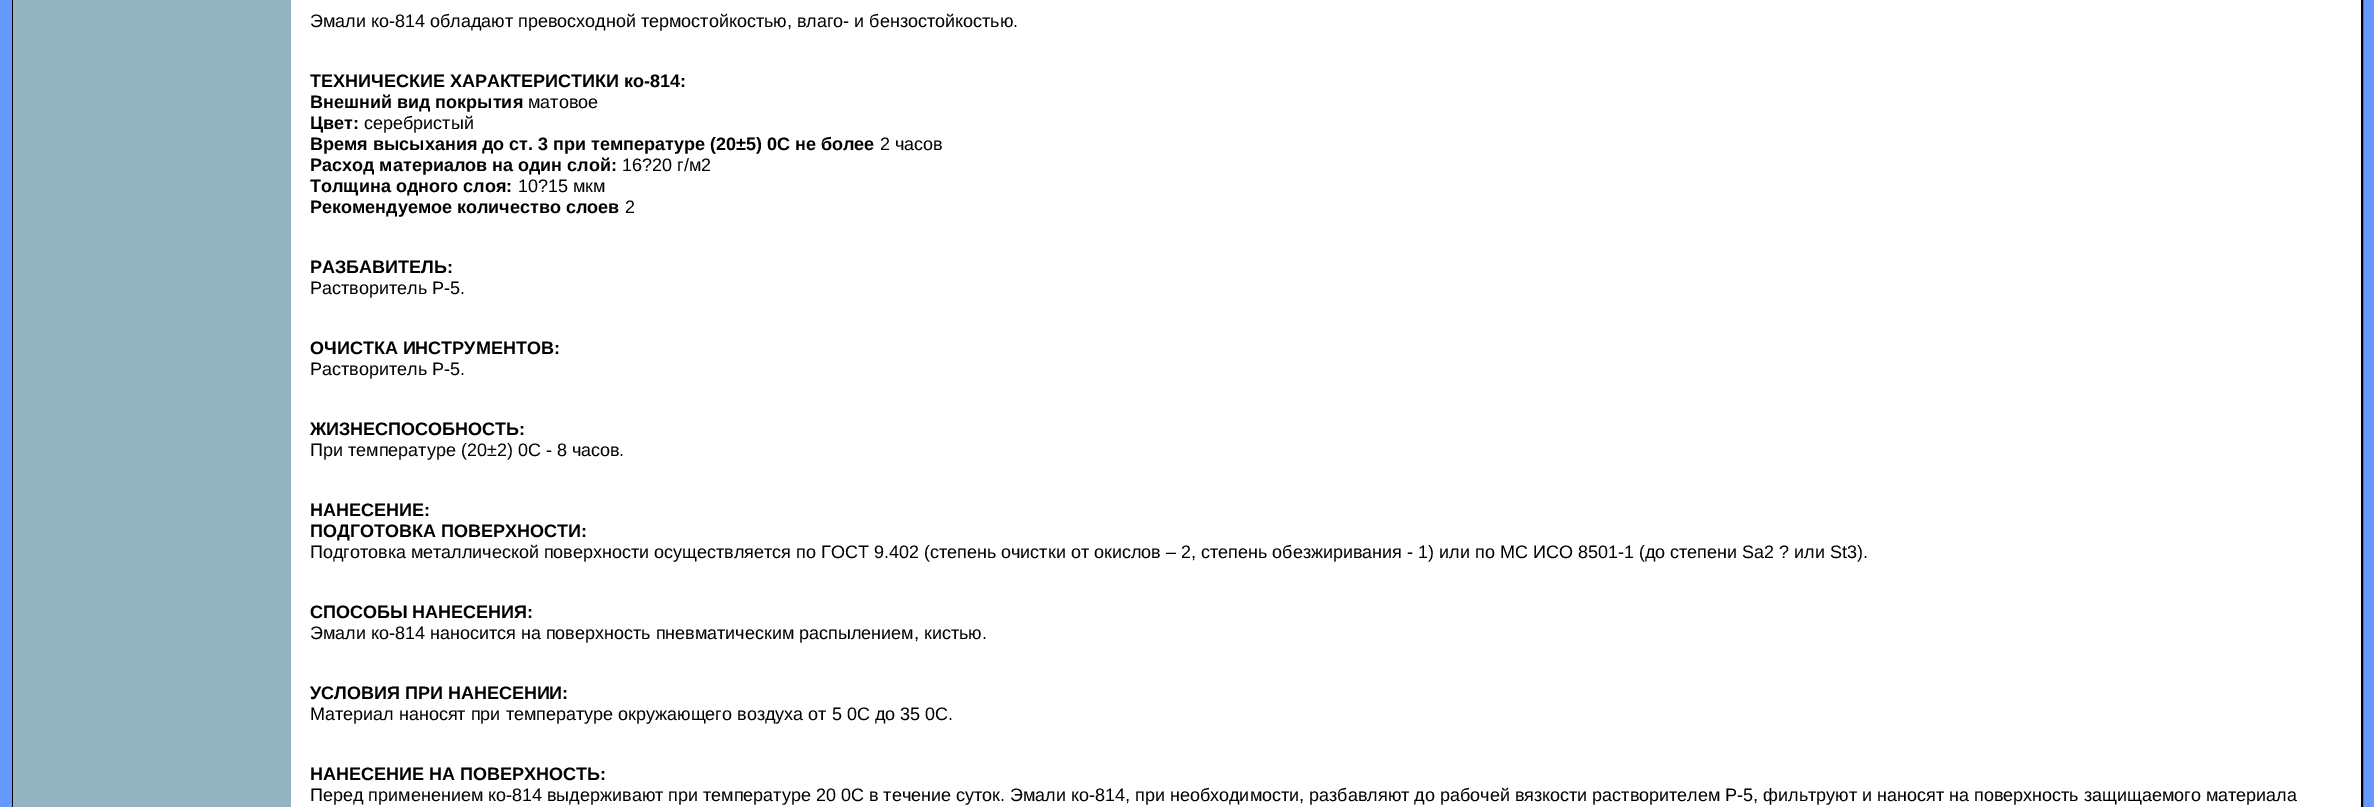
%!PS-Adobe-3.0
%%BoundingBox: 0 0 2374 807
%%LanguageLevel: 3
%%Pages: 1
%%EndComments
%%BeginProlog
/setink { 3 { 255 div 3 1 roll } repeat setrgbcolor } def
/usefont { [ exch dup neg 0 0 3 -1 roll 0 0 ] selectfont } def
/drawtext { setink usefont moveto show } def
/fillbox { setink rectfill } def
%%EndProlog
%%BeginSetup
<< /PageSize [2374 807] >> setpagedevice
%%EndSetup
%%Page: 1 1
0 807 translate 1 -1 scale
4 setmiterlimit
0 0 2374 807 102 153 255 fillbox
0 0 0 setink
2 setlinewidth
13 -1 2349 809 rectstroke
13 0 278 807 148 180 193 fillbox
291 0 2070 807 255 255 255 fillbox
(Эмали ко-814 обладают превосходной термостойкостью, влаго- и бензостойкостью.) 310 27 /LiberationSans-Regular 18 0 0 0 drawtext
(ТЕХНИЧЕСКИЕ ХАРАКТЕРИСТИКИ ко-814:) 310 87 /LiberationSans-Bold 18 0 0 0 drawtext
(Внешний вид покрытия) 310 108 /LiberationSans-Bold 18 0 0 0 drawtext
(матовое) 528 108 /LiberationSans-Regular 18 0 0 0 drawtext
(Цвет:) 310 129 /LiberationSans-Bold 18 0 0 0 drawtext
(серебристый) 364 129 /LiberationSans-Regular 18 0 0 0 drawtext
(Время высыхания до ст. 3 при температуре \(20±5\) 0С не более) 310 150 /LiberationSans-Bold 18 0 0 0 drawtext
(2 часов) 880 150 /LiberationSans-Regular 18 0 0 0 drawtext
(Расход материалов на один слой:) 310 171 /LiberationSans-Bold 18 0 0 0 drawtext
(16?20 г/м2) 622 171 /LiberationSans-Regular 18 0 0 0 drawtext
(Толщина одного слоя:) 310 192 /LiberationSans-Bold 18 0 0 0 drawtext
(10?15 мкм) 518 192 /LiberationSans-Regular 18 0 0 0 drawtext
(Рекомендуемое количество слоев) 310 213 /LiberationSans-Bold 18 0 0 0 drawtext
(2) 625 213 /LiberationSans-Regular 18 0 0 0 drawtext
(РАЗБАВИТЕЛЬ:) 310 273 /LiberationSans-Bold 18 0 0 0 drawtext
(Растворитель Р-5.) 310 294 /LiberationSans-Regular 18 0 0 0 drawtext
(ОЧИСТКА ИНСТРУМЕНТОВ:) 310 354 /LiberationSans-Bold 18 0 0 0 drawtext
(Растворитель Р-5.) 310 375 /LiberationSans-Regular 18 0 0 0 drawtext
(ЖИЗНЕСПОСОБНОСТЬ:) 310 435 /LiberationSans-Bold 18 0 0 0 drawtext
(При температуре \(20±2\) 0С - 8 часов.) 310 456 /LiberationSans-Regular 18 0 0 0 drawtext
(НАНЕСЕНИЕ:) 310 516 /LiberationSans-Bold 18 0 0 0 drawtext
(ПОДГОТОВКА ПОВЕРХНОСТИ:) 310 537 /LiberationSans-Bold 18 0 0 0 drawtext
(Подготовка металлической поверхности осуществляется по ГОСТ 9.402 \(степень очистки от окислов – 2, степень обезжиривания - 1\) или по МС ИСО 8501-1 \(до степени Sa2 ? или St3\).) 310 558 /LiberationSans-Regular 18 0 0 0 drawtext
(СПОСОБЫ НАНЕСЕНИЯ:) 310 618 /LiberationSans-Bold 18 0 0 0 drawtext
(Эмали ко-814 наносится на поверхность пневматическим распылением, кистью.) 310 639 /LiberationSans-Regular 18 0 0 0 drawtext
(УСЛОВИЯ ПРИ НАНЕСЕНИИ:) 310 699 /LiberationSans-Bold 18 0 0 0 drawtext
(Материал наносят при температуре окружающего воздуха от 5 0С до 35 0С.) 310 720 /LiberationSans-Regular 18 0 0 0 drawtext
(НАНЕСЕНИЕ НА ПОВЕРХНОСТЬ:) 310 780 /LiberationSans-Bold 18 0 0 0 drawtext
(Перед применением ко-814 выдерживают при температуре 20 0С в течение суток. Эмали ко-814, при необходимости, разбавляют до рабочей вязкости растворителем Р-5, фильтруют и наносят на поверхность защищаемого материала) 310 801 /LiberationSans-Regular 18 0 0 0 drawtext
showpage
%%EOF
